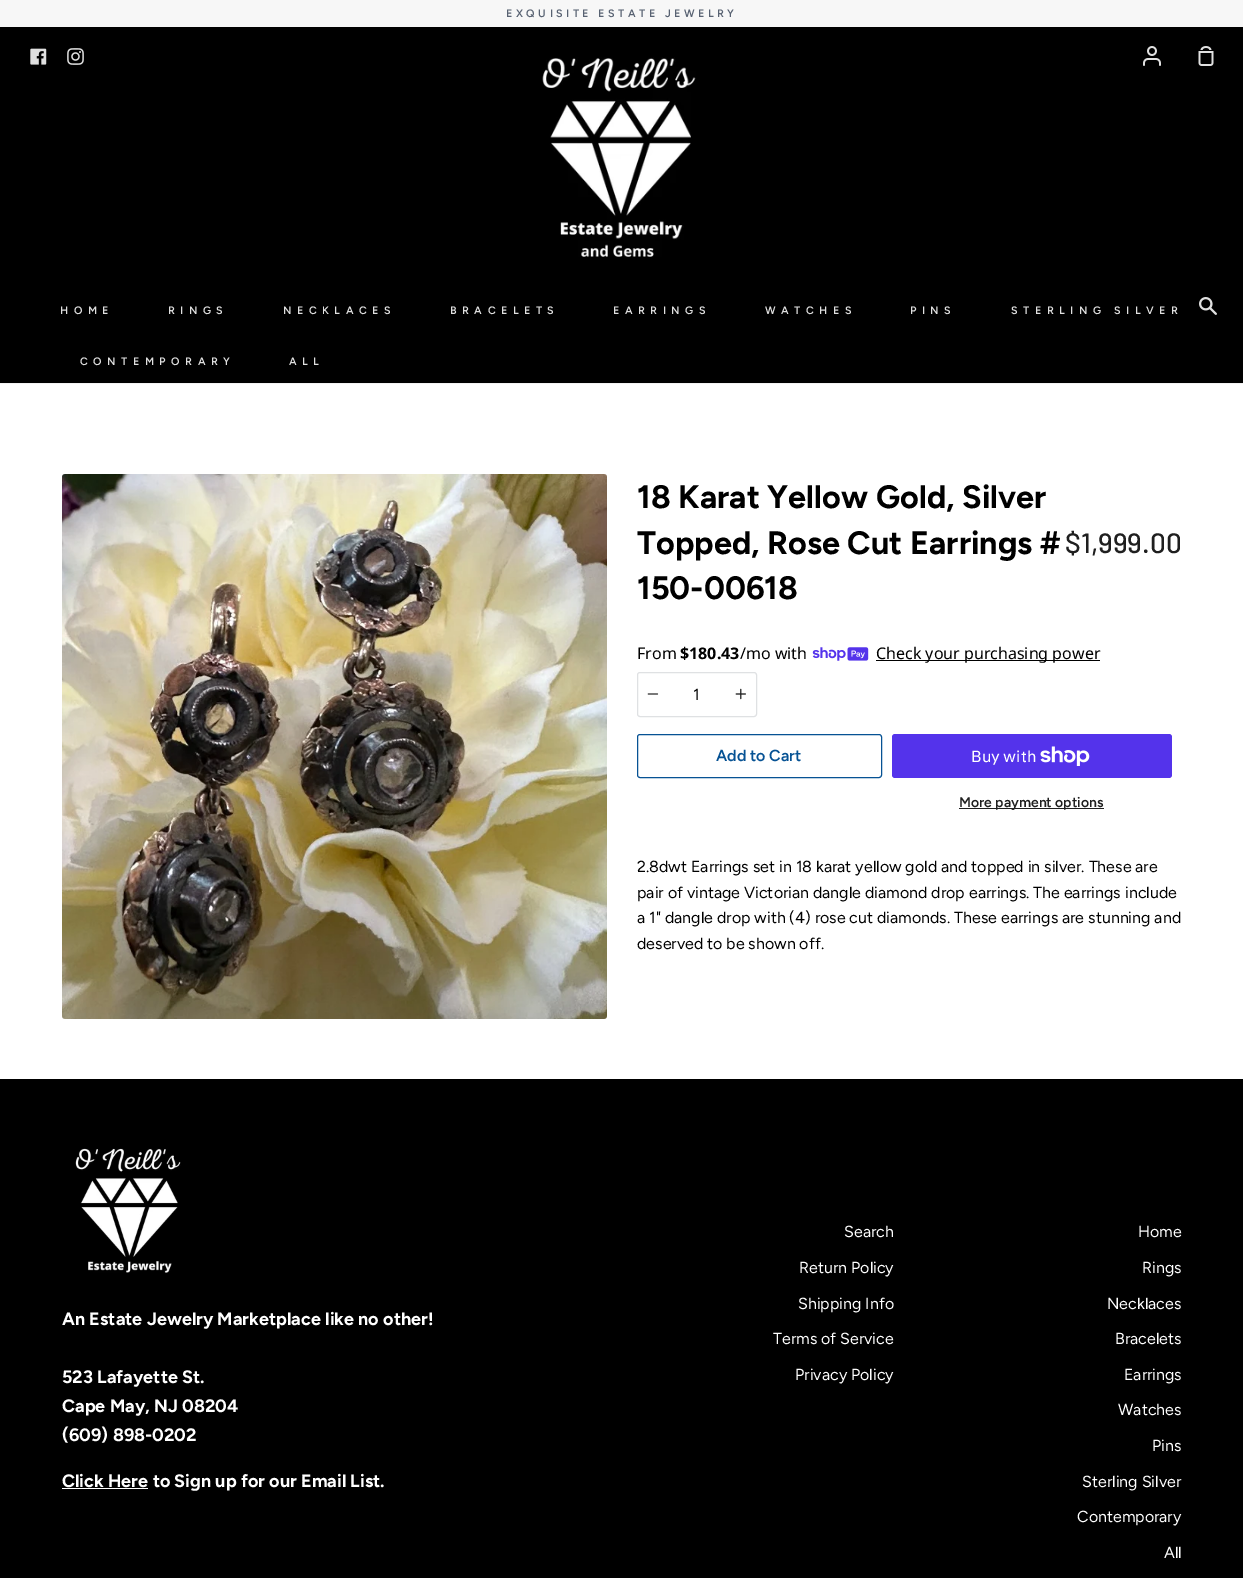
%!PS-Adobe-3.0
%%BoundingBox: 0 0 1243 1578
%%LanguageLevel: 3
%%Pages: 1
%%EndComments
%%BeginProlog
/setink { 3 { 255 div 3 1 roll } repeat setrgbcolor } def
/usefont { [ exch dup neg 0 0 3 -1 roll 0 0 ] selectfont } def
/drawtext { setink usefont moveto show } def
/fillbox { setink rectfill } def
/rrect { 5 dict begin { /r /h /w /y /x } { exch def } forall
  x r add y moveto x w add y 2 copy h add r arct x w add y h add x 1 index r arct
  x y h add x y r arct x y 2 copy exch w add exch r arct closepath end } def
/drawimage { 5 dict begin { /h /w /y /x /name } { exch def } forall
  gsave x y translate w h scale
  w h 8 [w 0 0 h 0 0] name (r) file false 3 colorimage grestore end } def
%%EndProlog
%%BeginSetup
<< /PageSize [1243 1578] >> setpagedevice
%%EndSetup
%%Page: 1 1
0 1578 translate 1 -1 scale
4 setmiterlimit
0 0 1243 1578 255 255 255 fillbox
0 0 1243 27 247 247 247 fillbox
/Figtree-SemiBold 10.8 usefont
88 98 114 setink
506 17 moveto 3.5 0 (EXQUISITE ESTATE JEWELRY) ashow
0 27 1243 356 0 0 0 fillbox
0 383 1243 1 242 242 242 fillbox
(assets/img1.rgb) 30 48 17 17 drawimage
(assets/img2.rgb) 67 48 17 17 drawimage
(assets/img3.rgb) 542 57 154 200 drawimage
(assets/img4.rgb) 1143 46 18 20 drawimage
(assets/img5.rgb) 1198 46 16 20 drawimage
224 224 224 setink
60 314 moveto 5.5 0 (HOME) ashow
168 314 moveto 5.5 0 (RINGS) ashow
283 314 moveto 5.5 0 (NECKLACES) ashow
450 314 moveto 5.5 0 (BRACELETS) ashow
613 314 moveto 5.5 0 (EARRINGS) ashow
765 314 moveto 5.5 0 (WATCHES) ashow
910 314 moveto 5.5 0 (PINS) ashow
1011 314 moveto 5.5 0 (STERLING SILVER) ashow
80 365 moveto 5.5 0 (CONTEMPORARY) ashow
289 365 moveto 5.5 0 (ALL) ashow
(assets/img6.rgb) 1199 297 18 18 drawimage
(assets/img7.rgb) 62 474 545 545 drawimage
(18 Karat Yellow Gold, Silver) 637 508 /Figtree-Bold 32.4 0 0 0 drawtext
(Topped, Rose Cut Earrings #) 637 554 /Figtree-Bold 32.4 0 0 0 drawtext
(150-00618) 637 599 /Figtree-Bold 32.4 0 0 0 drawtext
($1,999.00) 1065 553 /Barlow-Medium 28 31 31 31 drawtext
(From) 637 659 /NotoSans-Regular 16 0 0 0 drawtext
($180.43) 680 659 /NotoSans-Bold 16 0 0 0 drawtext
(/mo with) 740 659 /NotoSans-Regular 16 0 0 0 drawtext
(assets/img8.rgb) 812 647 57 14 drawimage
876 660 224 1 0 0 0 fillbox
(Check your purchasing power) 876 659 /NotoSans-Regular 16 0 0 0 drawtext
223 225 227 setink
637.5 672.5 119 44 2.5 rrect stroke
(assets/img9.rgb) 647 693 12 2 drawimage
(1) 693 700 /Figtree-Regular 16 0 0 0 drawtext
(assets/img10.rgb) 735 688 11 12 drawimage
6 82 148 setink
637.5 734.5 244 43 2.5 rrect stroke
(Add to Cart) 716 761 /Figtree-SemiBold 16 6 82 148 drawtext
84 51 235 setink
892 734 280 44 3 rrect fill
(Buy with) 971 762 /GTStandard-Regular 16 255 255 255 drawtext
(assets/img11.rgb) 1040 746 50 20 drawimage
959 808 145 1 31 31 31 fillbox
(More payment options) 959 807 /Figtree-SemiBold 14 31 31 31 drawtext
(2.8dwt Earrings set in 18 karat yellow gold and topped in silver. These are) 637 872 /Figtree-Regular 16 0 0 0 drawtext
(pair of vintage Victorian dangle diamond drop earrings. The earrings include) 637 898 /Figtree-Regular 16 0 0 0 drawtext
(a 1" dangle drop with \(4\) rose cut diamonds. These earrings are stunning and) 637 923 /Figtree-Regular 16 0 0 0 drawtext
(deserved to be shown off.) 637 949 /Figtree-Regular 16 0 0 0 drawtext
0 1079 1243 499 0 0 0 fillbox
(assets/img12.rgb) 75 1148 106 125 drawimage
(An Estate Jewelry Marketplace like no other!) 62 1325 /Figtree-Bold 18 255 255 255 drawtext
(523 Lafayette St.) 62 1383 /Figtree-Bold 18 255 255 255 drawtext
(Cape May, NJ 08204) 62 1412 /Figtree-Bold 18 255 255 255 drawtext
(\(609\) 898-0202) 62 1441 /Figtree-Bold 18 255 255 255 drawtext
62 1488 86 1 255 255 255 fillbox
(Click Here to Sign up for our Email List.) 62 1487 /Figtree-Bold 18 255 255 255 drawtext
(Search) 844 1237 /Figtree-Regular 16 255 255 255 drawtext
(Return Policy) 799 1273 /Figtree-Regular 16 255 255 255 drawtext
(Shipping Info) 798 1309 /Figtree-Regular 16 255 255 255 drawtext
(Terms of Service) 773 1344 /Figtree-Regular 16 255 255 255 drawtext
(Privacy Policy) 795 1380 /Figtree-Regular 16 255 255 255 drawtext
(Home) 1138 1237 /Figtree-Regular 16 255 255 255 drawtext
(Rings) 1142 1273 /Figtree-Regular 16 255 255 255 drawtext
(Necklaces) 1107 1309 /Figtree-Regular 16 255 255 255 drawtext
(Bracelets) 1115 1344 /Figtree-Regular 16 255 255 255 drawtext
(Earrings) 1124 1380 /Figtree-Regular 16 255 255 255 drawtext
(Watches) 1118 1415 /Figtree-Regular 16 255 255 255 drawtext
(Pins) 1152 1451 /Figtree-Regular 16 255 255 255 drawtext
(Sterling Silver) 1082 1487 /Figtree-Regular 16 255 255 255 drawtext
(Contemporary) 1077 1522 /Figtree-Regular 16 255 255 255 drawtext
(All) 1164 1558 /Figtree-Regular 16 255 255 255 drawtext
showpage
%%EOF
